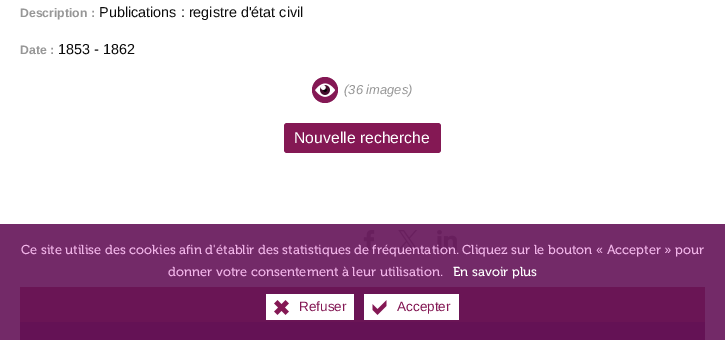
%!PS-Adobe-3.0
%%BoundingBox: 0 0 725 340
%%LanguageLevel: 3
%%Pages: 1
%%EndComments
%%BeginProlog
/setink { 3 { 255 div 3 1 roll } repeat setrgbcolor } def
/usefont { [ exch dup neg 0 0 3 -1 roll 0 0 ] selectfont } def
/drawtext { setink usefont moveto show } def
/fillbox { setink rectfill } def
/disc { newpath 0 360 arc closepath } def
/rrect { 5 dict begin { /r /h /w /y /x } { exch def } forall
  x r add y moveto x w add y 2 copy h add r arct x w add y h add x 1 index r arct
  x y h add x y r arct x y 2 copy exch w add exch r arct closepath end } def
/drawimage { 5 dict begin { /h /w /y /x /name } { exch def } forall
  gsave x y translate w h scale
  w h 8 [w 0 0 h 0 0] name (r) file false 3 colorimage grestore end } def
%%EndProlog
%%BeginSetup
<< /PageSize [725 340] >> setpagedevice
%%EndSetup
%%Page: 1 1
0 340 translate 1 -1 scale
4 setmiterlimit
0 0 725 340 255 255 255 fillbox
0 224 725 116 115 42 104 fillbox
(Description :) 20 17 /LiberationSans-Bold 12.25 151 151 151 drawtext
(Publications : registre d'état civil) 99 17 /LiberationSans-Regular 14.4 13 13 13 drawtext
(Date :) 20 54 /LiberationSans-Bold 12.25 151 151 151 drawtext
(1853 - 1862) 58 54 /LiberationSans-Regular 14.4 13 13 13 drawtext
132 24 84 setink
325 90 13 disc fill
(assets/img1.rgb) 315 83 20 14 drawimage
(\(36 images\)) 344 94 /LiberationSans-Italic 12.95 151 151 151 drawtext
132 24 84 setink
284 123 157 30 3 rrect fill
(Nouvelle recherche) 294 143 /LiberationSans-Regular 15.75 255 255 255 drawtext
(assets/img2.rgb) 363 230 12 20 drawimage
(assets/img3.rgb) 398 230 20 20 drawimage
(assets/img4.rgb) 437 230 20 20 drawimage
20 322 685 18 100 18 85 fillbox
20 287 685 35 106 21 85 fillbox
(Ce site utilise des cookies afin d'établir des statistiques de fréquentation. Cliquez sur le bouton « Accepter » pour) 21 254 /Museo-Regular 12.95 242 181 233 drawtext
(donner votre consentement à leur utilisation.) 168 276 /Museo-Regular 12.95 242 181 233 drawtext
(En savoir plus) 453 276 /Museo-Regular 12.95 255 255 255 drawtext
266 294 88 26 255 255 255 fillbox
(assets/img5.rgb) 274 300 15 15 drawimage
(Refuser) 299 311 /LiberationSans-Regular 13.5 132 24 84 drawtext
364 294 95 26 255 255 255 fillbox
(assets/img6.rgb) 372 300 15 15 drawimage
(Accepter) 397 311 /LiberationSans-Regular 13.5 132 24 84 drawtext
showpage
%%EOF
